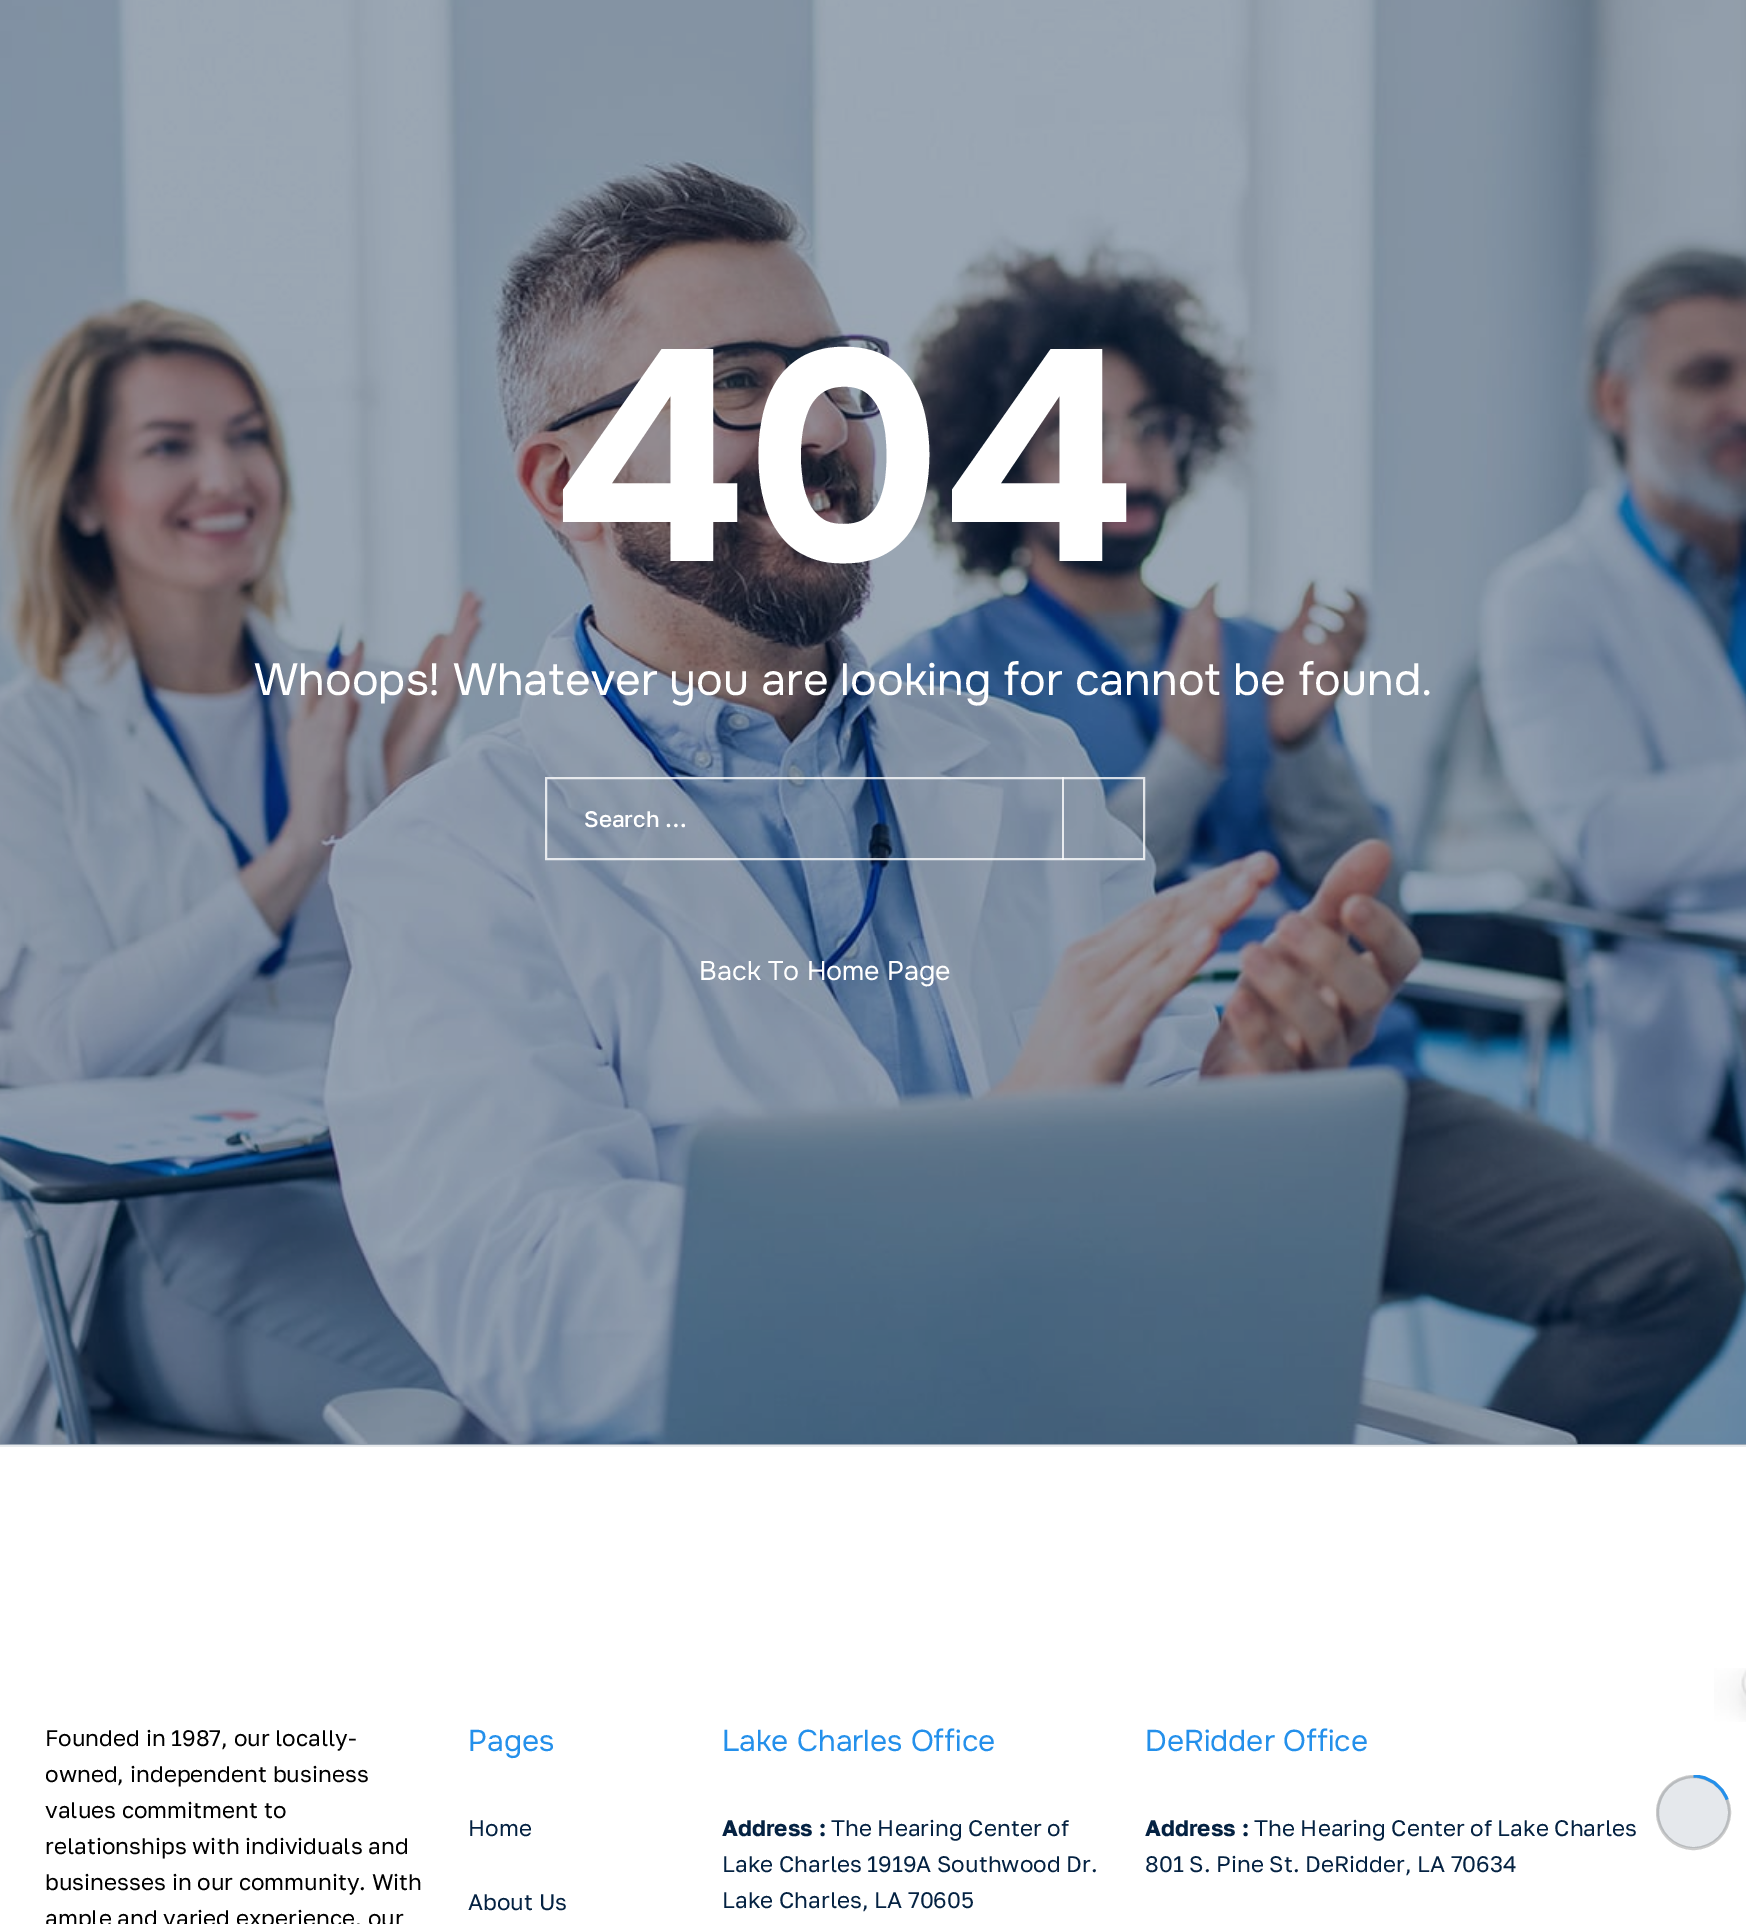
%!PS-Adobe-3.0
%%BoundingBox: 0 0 1746 1924
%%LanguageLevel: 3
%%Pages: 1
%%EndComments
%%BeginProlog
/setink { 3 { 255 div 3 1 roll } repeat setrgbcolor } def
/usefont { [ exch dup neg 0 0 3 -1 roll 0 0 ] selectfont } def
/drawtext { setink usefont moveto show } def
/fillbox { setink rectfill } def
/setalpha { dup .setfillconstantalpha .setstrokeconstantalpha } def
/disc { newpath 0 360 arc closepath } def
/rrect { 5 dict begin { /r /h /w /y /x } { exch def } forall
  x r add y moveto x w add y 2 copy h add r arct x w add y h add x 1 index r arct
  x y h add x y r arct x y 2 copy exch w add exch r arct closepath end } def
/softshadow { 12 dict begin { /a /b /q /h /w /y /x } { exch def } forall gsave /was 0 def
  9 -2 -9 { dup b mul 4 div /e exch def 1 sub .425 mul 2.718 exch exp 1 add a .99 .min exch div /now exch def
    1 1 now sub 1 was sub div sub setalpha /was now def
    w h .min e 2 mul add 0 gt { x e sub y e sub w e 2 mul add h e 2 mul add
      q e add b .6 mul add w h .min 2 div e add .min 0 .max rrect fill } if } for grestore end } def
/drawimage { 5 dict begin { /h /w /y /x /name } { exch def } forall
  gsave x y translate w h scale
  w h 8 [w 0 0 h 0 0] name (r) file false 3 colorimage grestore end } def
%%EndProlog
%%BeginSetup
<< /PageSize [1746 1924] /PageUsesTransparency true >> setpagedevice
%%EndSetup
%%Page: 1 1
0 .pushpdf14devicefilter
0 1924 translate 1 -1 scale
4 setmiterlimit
0 0 1746 1924 255 255 255 fillbox
0 1444 1746 1 155 167 180 fillbox
(assets/img1.rgb) 0 0 1746 1444 drawimage
(404) 554 561 /Onest-Bold 300 255 255 255 drawtext
/Onest-Regular 45 usefont
254 695 moveto -0.25 0 32 (Whoops! Whatever you are looking for cannot be found.) widthshow
0.8 setalpha
2 setlinewidth
546 778 598 81 rectstroke
1 setalpha
(Search …) 584 827 /GolosText-Medium 22.5 255 255 255 drawtext
0.8 setalpha
1062 777 2 83 255 255 255 fillbox
1 setalpha
(Back To Home Page) 699 980 /Onest-Regular 27 255 255 255 drawtext
(assets/img2.rgb) 1714 1668 32 54 drawimage
0 1445 1746 2 230 233 236 fillbox
(Founded in 1987, our locally-) 45 1746 /GolosText-Regular 22.5 0 0 0 drawtext
(owned, independent business) 45 1782 /GolosText-Regular 22.5 0 0 0 drawtext
(values commitment to) 45 1818 /GolosText-Regular 22.5 0 0 0 drawtext
(relationships with individuals and) 45 1854 /GolosText-Regular 22.5 0 0 0 drawtext
(businesses in our community. With) 45 1890 /GolosText-Regular 22.5 0 0 0 drawtext
(ample and varied experience, our) 45 1926 /GolosText-Regular 22.5 0 0 0 drawtext
(Pages) 468 1751 /Onest-Regular 30 36 144 235 drawtext
(Home) 468 1836 /GolosText-Regular 22.5 4 34 66 drawtext
(About Us) 468 1910 /GolosText-Regular 22.5 4 34 66 drawtext
(Lake Charles Office) 722 1751 /Onest-Regular 30 36 144 235 drawtext
(Address :) 722 1836 /GolosText-Bold 22.5 4 34 66 drawtext
(The Hearing Center of) 831 1836 /GolosText-Regular 22.5 4 34 66 drawtext
(Lake Charles 1919A Southwood Dr.) 722 1872 /GolosText-Regular 22.5 4 34 66 drawtext
(Lake Charles, LA 70605) 722 1908 /GolosText-Regular 22.5 4 34 66 drawtext
(DeRidder Office) 1145 1751 /Onest-Regular 30 36 144 235 drawtext
(Address :) 1145 1836 /GolosText-Bold 22.5 4 34 66 drawtext
(The Hearing Center of Lake Charles) 1254 1836 /GolosText-Regular 22.5 4 34 66 drawtext
(801 S. Pine St. DeRidder, LA 70634) 1145 1872 /GolosText-Regular 22.5 4 34 66 drawtext
0 0 0 setink
1730 1196 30 79 0 4.5 0.16 softshadow
204 204 204 setink
3 setlinewidth
1693.5 1812.5 36 disc stroke
0.1 setalpha
4 34 66 setink
1694 1776 moveto 1713 1776 1730 1792 1730 1812 curveto 1730 1832 1713 1848 1694 1848 curveto 1674 1848 1657 1832 1657 1812 curveto 1657 1792 1674 1776 1694 1776 curveto fill
gsave
1656 1775 75 75 rectclip
1 setalpha
36 144 235 setink
2.9 setlinewidth
1693.5 1776 moveto 1709 1776 1722 1785.5 1727 1799.5 curveto stroke
grestore
.poppdf14devicefilter showpage
%%EOF
